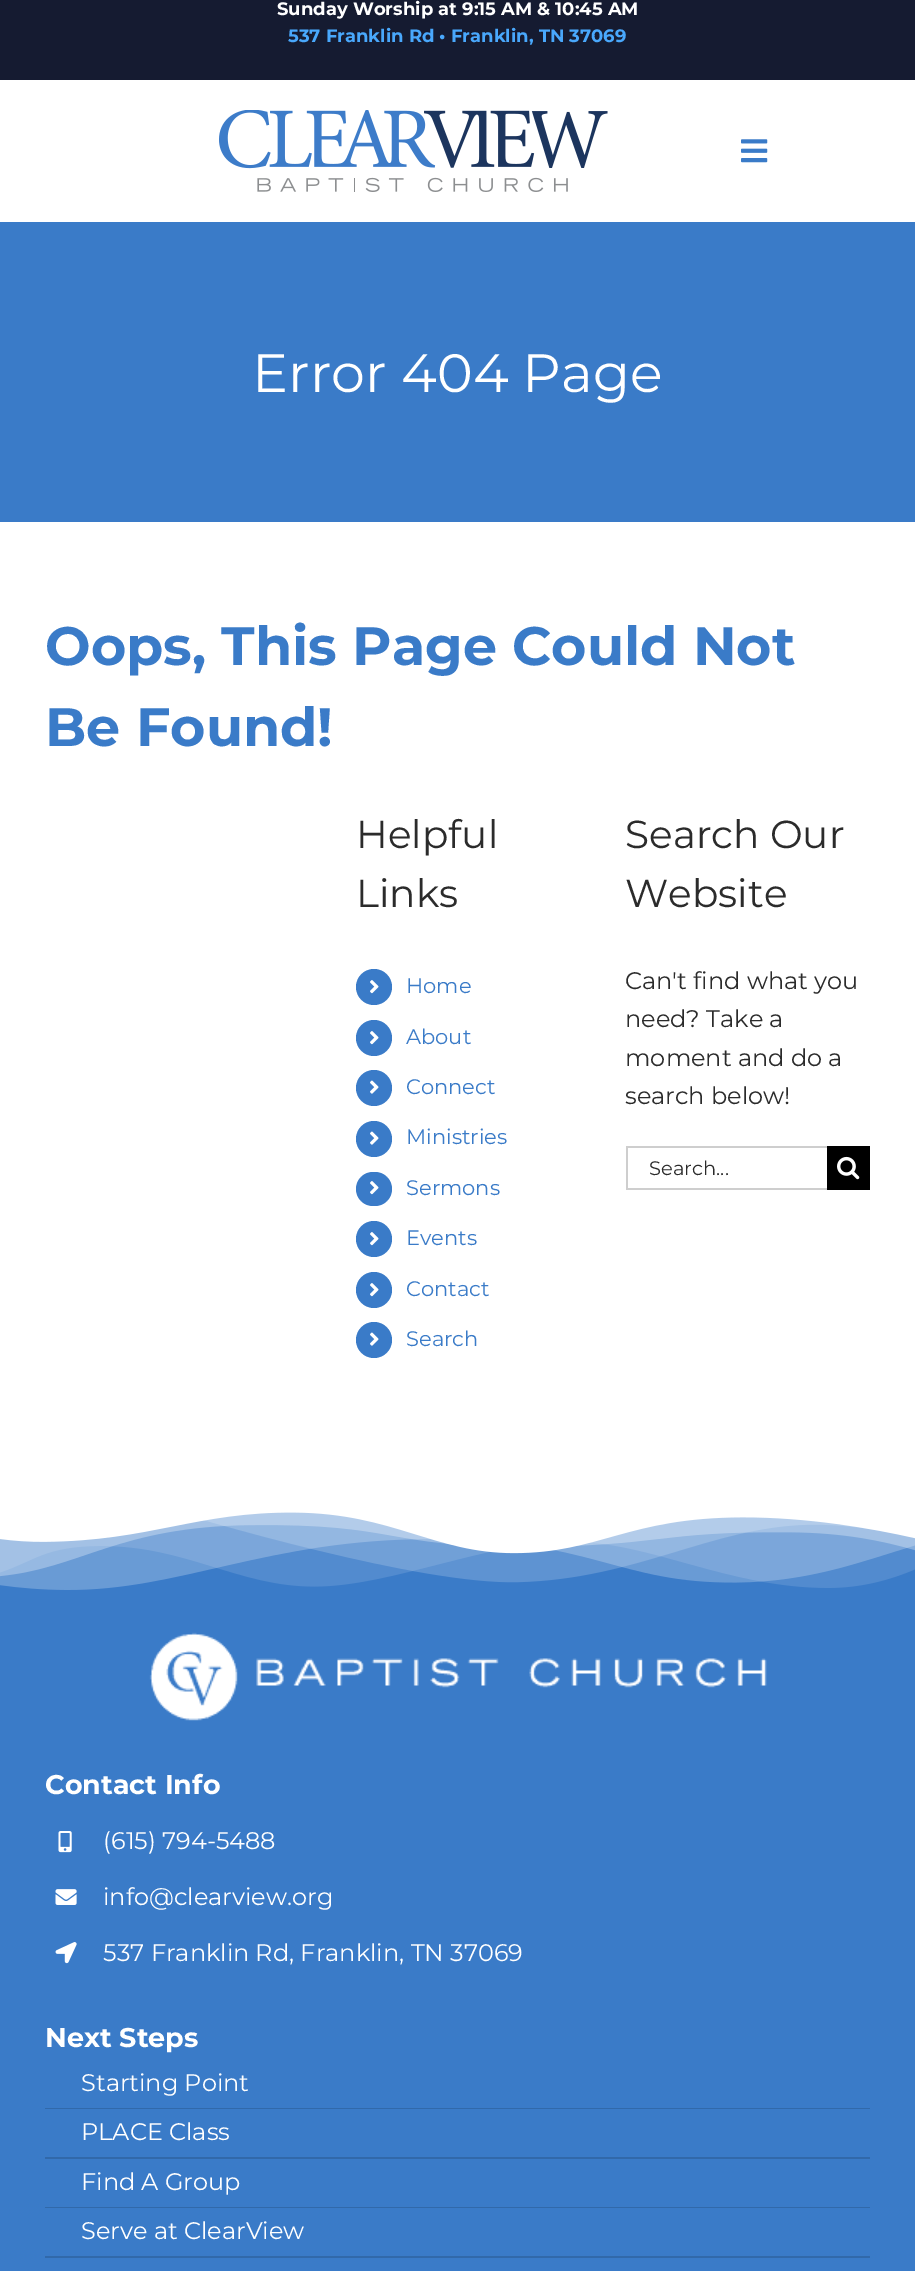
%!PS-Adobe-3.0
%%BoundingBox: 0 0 915 2271
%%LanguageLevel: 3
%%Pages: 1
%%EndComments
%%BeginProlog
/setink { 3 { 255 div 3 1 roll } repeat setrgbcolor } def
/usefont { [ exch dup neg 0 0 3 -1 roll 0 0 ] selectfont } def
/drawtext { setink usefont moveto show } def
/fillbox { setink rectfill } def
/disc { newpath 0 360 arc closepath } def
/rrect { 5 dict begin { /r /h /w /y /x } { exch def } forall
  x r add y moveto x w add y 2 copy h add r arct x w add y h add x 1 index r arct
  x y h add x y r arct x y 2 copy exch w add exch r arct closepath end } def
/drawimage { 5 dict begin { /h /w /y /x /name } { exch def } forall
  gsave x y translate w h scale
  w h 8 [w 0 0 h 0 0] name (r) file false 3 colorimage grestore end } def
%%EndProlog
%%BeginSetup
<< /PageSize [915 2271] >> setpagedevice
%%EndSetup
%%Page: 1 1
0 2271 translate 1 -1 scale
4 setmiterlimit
0 0 915 2271 255 255 255 fillbox
0 0 915 80 21 27 49 fillbox
(Sunday Worship at 9:15 AM & 10:45 AM) 277 15 /Montserrat-Bold 18 255 255 255 drawtext
(537 Franklin Rd • Franklin, TN 37069) 288 42 /Montserrat-Bold 18 73 168 252 drawtext
(assets/img1.rgb) 219 110 389 82 drawimage
(assets/img2.rgb) 741 139 27 24 drawimage
0 222 915 300 58 123 200 fillbox
(Error 404 Page) 252 392 /Montserrat-Regular 54 255 255 255 drawtext
(Oops, This Page Could Not) 45 665 /Montserrat-Bold 54 58 123 200 drawtext
(Be Found!) 45 746 /Montserrat-Bold 54 58 123 200 drawtext
(Helpful) 356 848 /Montserrat-Regular 39 43 43 43 drawtext
(Links) 356 907 /Montserrat-Regular 39 43 43 43 drawtext
58 123 200 setink
374 987 18 disc fill
(assets/img3.rgb) 370 980 9 14 drawimage
(Home) 406 993 /Montserrat-Regular 21 58 123 200 drawtext
374 1038 18 disc fill
(assets/img3.rgb) 370 1031 9 14 drawimage
(About) 406 1044 /Montserrat-Regular 21 58 123 200 drawtext
374 1088 18 disc fill
(assets/img4.rgb) 370 1080 9 14 drawimage
(Connect) 406 1094 /Montserrat-Regular 21 58 123 200 drawtext
374 1139 18 disc fill
(assets/img4.rgb) 370 1131 9 14 drawimage
(Ministries) 406 1144 /Montserrat-Regular 21 58 123 200 drawtext
356 1172 36 34 17 rrect fill
(assets/img3.rgb) 370 1181 9 14 drawimage
(Sermons) 406 1195 /Montserrat-Regular 21 58 123 200 drawtext
374 1239 18 disc fill
(assets/img3.rgb) 370 1232 9 14 drawimage
(Events) 406 1245 /Montserrat-Regular 21 58 123 200 drawtext
374 1290 18 disc fill
(assets/img3.rgb) 370 1283 9 14 drawimage
(Contact) 406 1296 /Montserrat-Regular 21 58 123 200 drawtext
374 1340 18 disc fill
(assets/img4.rgb) 370 1332 9 14 drawimage
(Search) 406 1346 /Montserrat-Regular 21 58 123 200 drawtext
(Search Our) 625 848 /Montserrat-Regular 39 43 43 43 drawtext
(Website) 625 907 /Montserrat-Regular 39 43 43 43 drawtext
(Can't find what you) 625 989 /Montserrat-Regular 24 43 43 43 drawtext
(need? Take a) 625 1027 /Montserrat-Regular 24 43 43 43 drawtext
(moment and do a) 625 1066 /Montserrat-Regular 24 43 43 43 drawtext
(search below!) 625 1104 /Montserrat-Regular 24 43 43 43 drawtext
626 1146 201 2 206 206 206 fillbox
626 1188 201 2 206 206 206 fillbox
626 1146 2 44 206 206 206 fillbox
(Search...) 649 1175 /Montserrat-Regular 19.5 43 43 43 drawtext
827 1146 43 44 0 0 0 fillbox
(assets/img5.rgb) 837 1156 23 24 drawimage
0 1512 915 759 58 123 200 fillbox
(assets/img6.rgb) 0 1500 915 90 drawimage
(assets/img7.rgb) 149 1632 618 89 drawimage
(Contact Info) 45 1794 /Montserrat-Bold 27 255 255 255 drawtext
(assets/img8.rgb) 58 1831 14 22 drawimage
(\(615\) 794-5488) 103 1849 /Montserrat-Regular 24 255 255 255 drawtext
(assets/img9.rgb) 55 1889 22 16 drawimage
(info@clearview.org) 103 1905 /Montserrat-Regular 24 255 255 255 drawtext
(assets/img10.rgb) 55 1942 22 22 drawimage
(537 Franklin Rd, Franklin, TN 37069) 103 1961 /Montserrat-Regular 24 255 255 255 drawtext
(Next Steps) 45 2047 /Montserrat-Bold 27 255 255 255 drawtext
45 2108 825 1 49 105 170 fillbox
(Starting Point) 81 2091 /Montserrat-Regular 24 255 255 255 drawtext
45 2157 825 2 49 105 170 fillbox
(PLACE Class) 81 2140 /Montserrat-Regular 24 255 255 255 drawtext
45 2207 825 1 49 105 170 fillbox
(Find A Group) 81 2190 /Montserrat-Regular 24 255 255 255 drawtext
45 2256 825 2 49 105 170 fillbox
(Serve at ClearView) 81 2239 /Montserrat-Regular 24 255 255 255 drawtext
showpage
%%EOF
